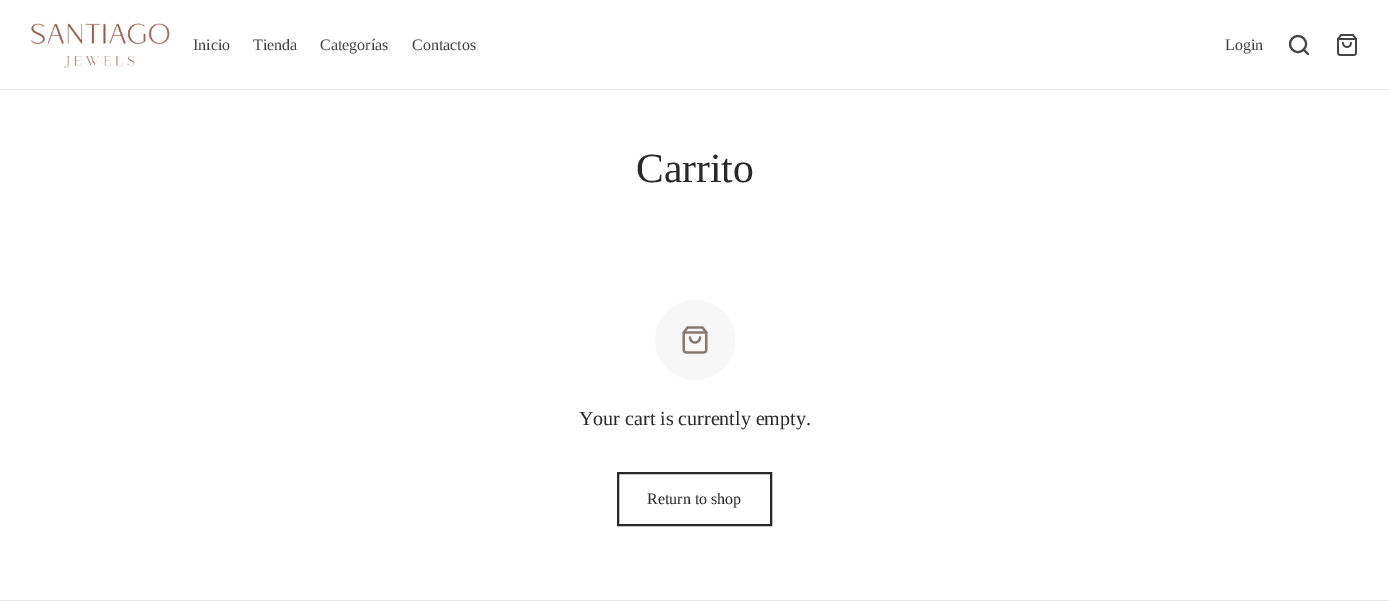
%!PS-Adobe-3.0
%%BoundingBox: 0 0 1389 601
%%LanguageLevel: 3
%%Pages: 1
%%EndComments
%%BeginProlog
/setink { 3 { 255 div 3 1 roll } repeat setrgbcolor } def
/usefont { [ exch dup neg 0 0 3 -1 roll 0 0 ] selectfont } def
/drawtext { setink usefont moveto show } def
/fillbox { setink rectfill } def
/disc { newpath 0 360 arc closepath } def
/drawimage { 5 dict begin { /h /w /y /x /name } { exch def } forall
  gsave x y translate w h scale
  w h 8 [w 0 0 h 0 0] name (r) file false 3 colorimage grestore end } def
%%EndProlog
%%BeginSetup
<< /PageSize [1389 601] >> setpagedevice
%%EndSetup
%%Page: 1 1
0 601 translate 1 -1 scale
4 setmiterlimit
0 0 1389 601 255 255 255 fillbox
(assets/img1.rgb) 31 23 139 45 drawimage
(Inicio) 193 50 /LiberationSerif-Regular 16 68 68 68 drawtext
(Tienda) 253 50 /LiberationSerif-Regular 16 68 68 68 drawtext
(Categorías) 320 50 /LiberationSerif-Regular 16 68 68 68 drawtext
(Contactos) 412 50 /LiberationSerif-Regular 16 68 68 68 drawtext
(Login) 1225 50 /LiberationSerif-Regular 16 68 68 68 drawtext
2 setlinewidth
1298 44 8 disc stroke
1 setlinecap
1 setlinejoin
1308 54 moveto 1303.5 49.5 lineto stroke
(assets/img2.rgb) 1337 34 20 22 drawimage
0 89 1389 1 230 230 230 fillbox
(Carrito) 636 182 /LiberationSerif-Regular 41.5 40 40 40 drawtext
247 247 247 setink
695 340 40 disc fill
(assets/img3.rgb) 682 326 26 28 drawimage
(Your cart is currently empty.) 579 425 /LiberationSerif-Regular 20 40 40 40 drawtext
0 setlinecap
0 setlinejoin
618 473 153 52 rectstroke
(Return to shop) 647 504 /LiberationSerif-Regular 16 40 40 40 drawtext
0 600 1389 1 230 230 230 fillbox
showpage
%%EOF
